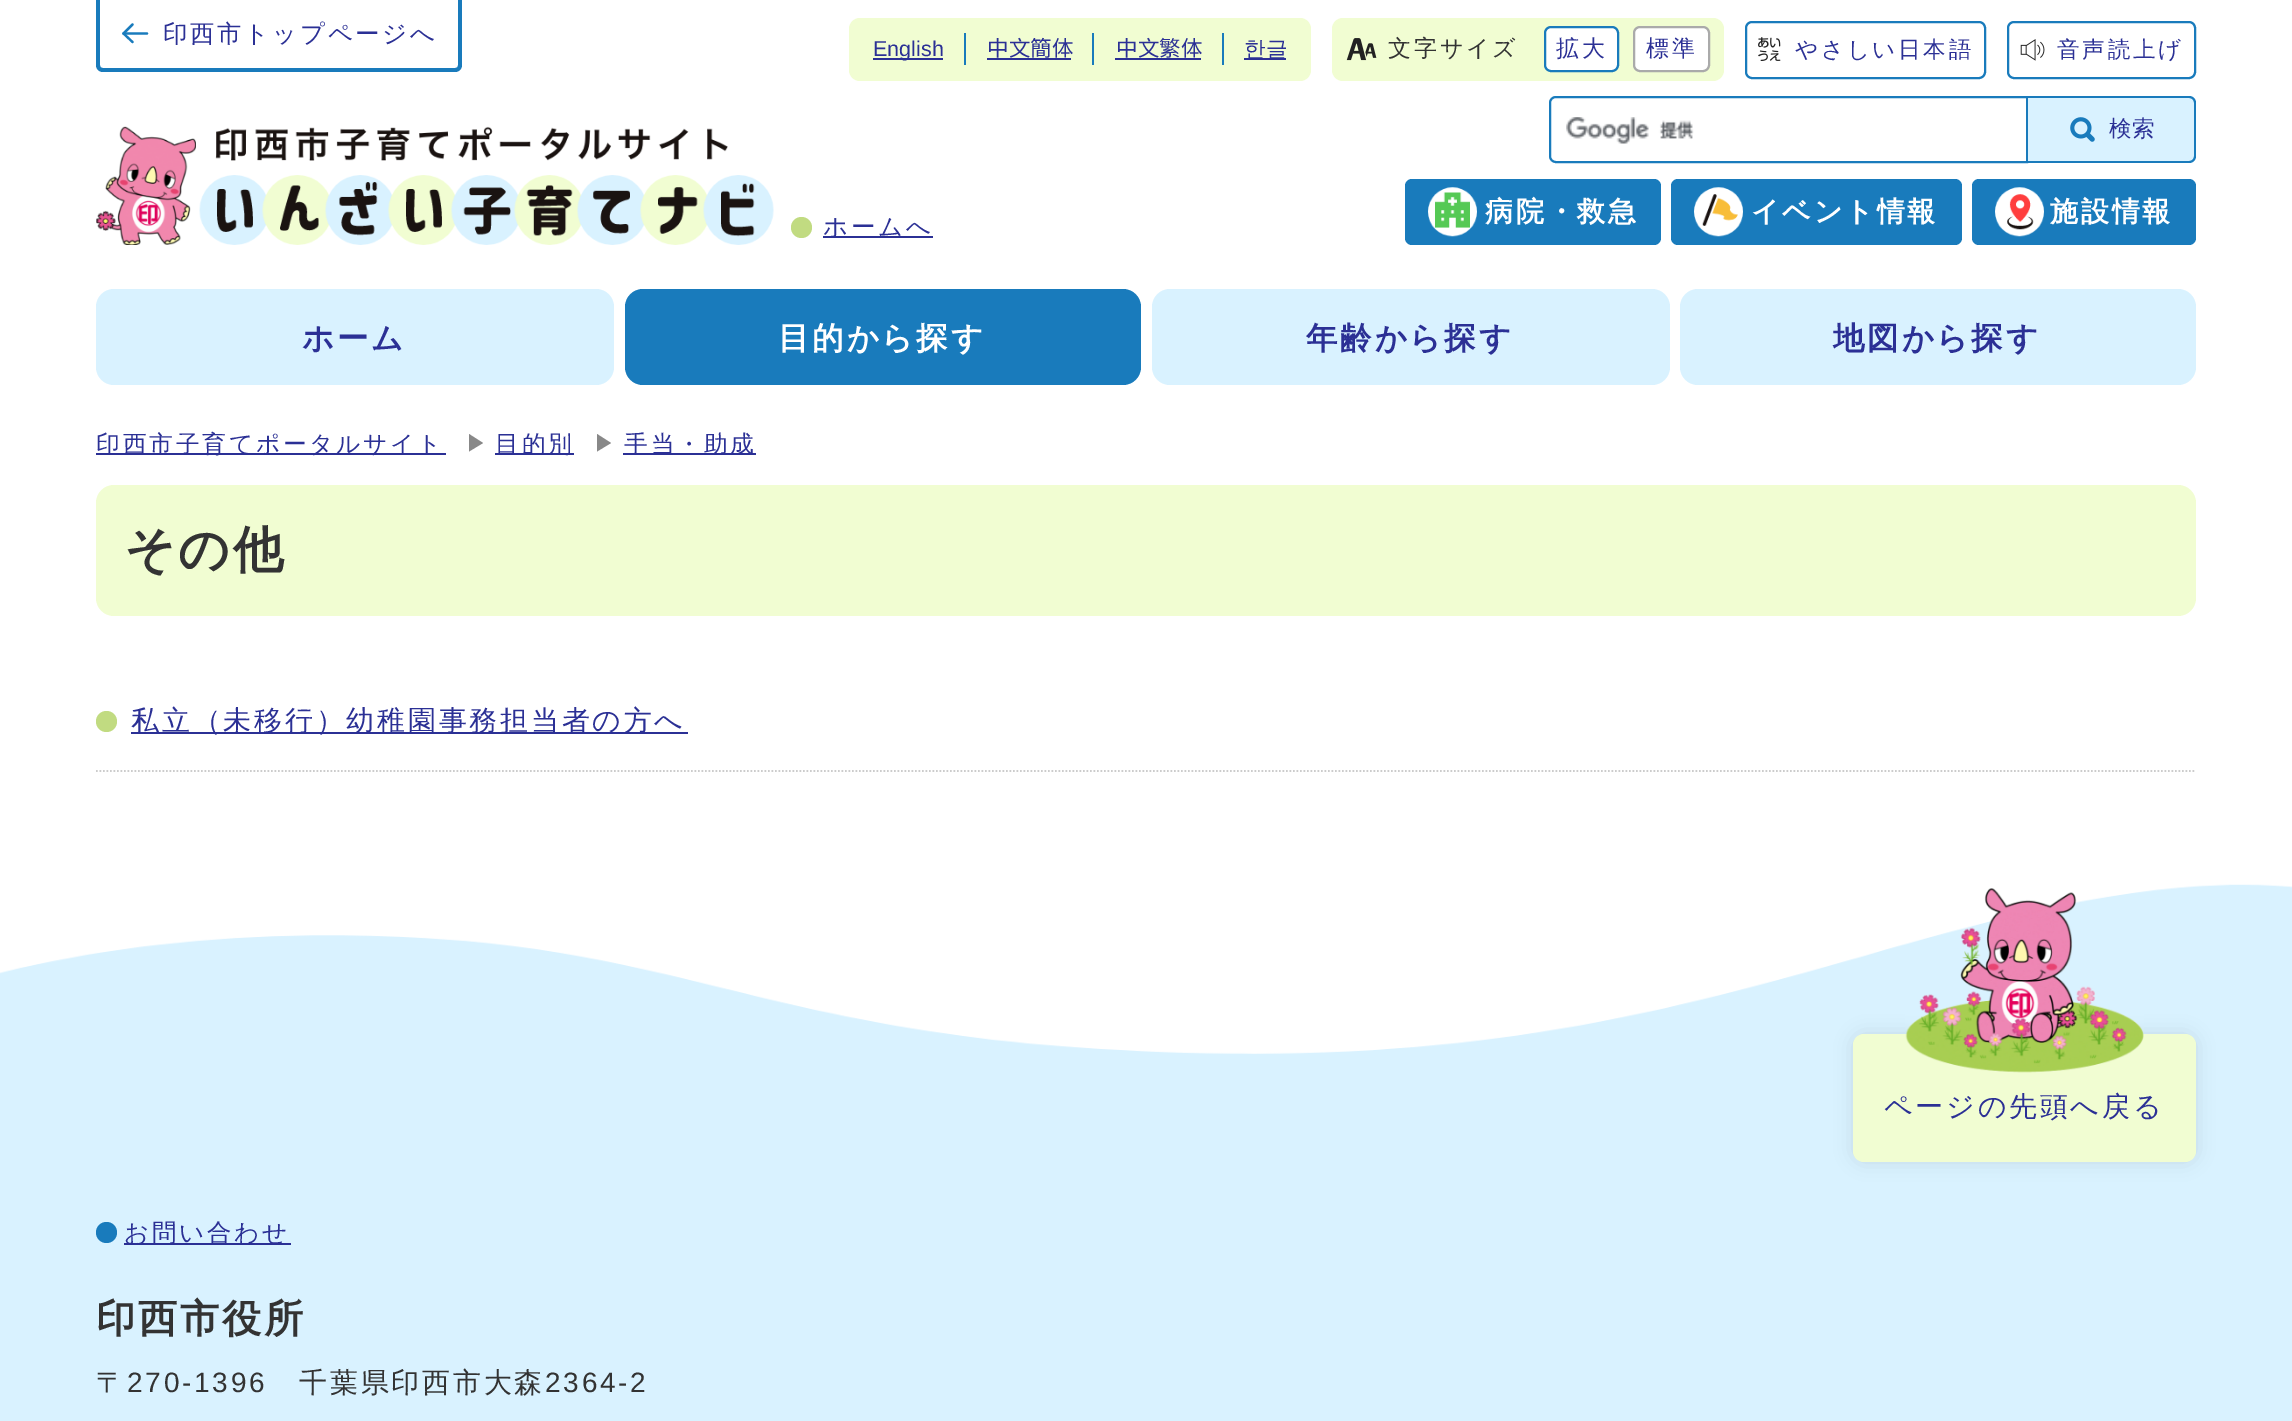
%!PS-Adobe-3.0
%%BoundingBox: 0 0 2292 1421
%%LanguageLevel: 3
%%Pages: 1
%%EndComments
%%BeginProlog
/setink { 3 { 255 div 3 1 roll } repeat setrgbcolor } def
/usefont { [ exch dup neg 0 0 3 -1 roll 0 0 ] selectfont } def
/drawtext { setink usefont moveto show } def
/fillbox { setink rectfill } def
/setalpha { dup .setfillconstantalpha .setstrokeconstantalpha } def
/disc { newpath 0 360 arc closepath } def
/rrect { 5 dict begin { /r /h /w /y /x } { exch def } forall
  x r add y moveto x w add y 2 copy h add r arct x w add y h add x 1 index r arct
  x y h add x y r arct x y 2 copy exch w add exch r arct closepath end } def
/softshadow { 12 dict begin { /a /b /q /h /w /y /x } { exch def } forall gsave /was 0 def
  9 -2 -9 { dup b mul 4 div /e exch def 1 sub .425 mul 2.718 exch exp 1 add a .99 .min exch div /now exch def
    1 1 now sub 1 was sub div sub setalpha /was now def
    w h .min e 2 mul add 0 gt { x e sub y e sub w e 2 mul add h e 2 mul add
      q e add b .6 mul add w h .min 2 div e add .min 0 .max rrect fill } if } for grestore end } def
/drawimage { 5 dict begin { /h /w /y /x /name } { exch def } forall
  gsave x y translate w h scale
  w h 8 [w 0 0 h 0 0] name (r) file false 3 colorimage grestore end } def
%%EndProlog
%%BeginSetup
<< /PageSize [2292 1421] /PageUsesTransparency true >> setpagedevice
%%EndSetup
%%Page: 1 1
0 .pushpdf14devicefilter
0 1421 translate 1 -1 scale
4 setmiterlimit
0 0 2292 1421 255 255 255 fillbox
25 123 188 setink
96 0 moveto 462 0 lineto 462 65 lineto 462 69 459 72 455 72 curveto 103 72 lineto 99 72 96 69 96 65 curveto closepath 100 0 moveto 458 0 lineto 458 65 lineto 458 67 457 68 455 68 curveto 103 68 lineto 101 68 100 67 100 65 curveto closepath eofill
2.2 setlinewidth
1 setlinecap
1 setlinejoin
132.5 24.5 moveto 123.5 33.5 lineto 132.5 42 lineto stroke
0 setlinejoin
147 33.5 moveto 123.5 33.5 lineto stroke
/WenQuanYiZenHei-Medium 24.4 usefont
43 48 149 setink
163 42 moveto 2.75 0 (印西市トップページへ) ashow
241 253 210 setink
849 18 462 63 11 rrect fill
964 33 2 32 25 123 188 fillbox
873 58 70 2 43 48 149 fillbox
(English) 873 56 /LiberationSans-Regular 21.5 43 48 149 drawtext
1092 33 2 32 25 123 188 fillbox
(中文簡体) 987 56 /NotoSansCJKSC-Regular 21.5 43 48 149 drawtext
987 58 84 2 43 48 149 fillbox
1222 33 2 32 25 123 188 fillbox
(中文繁体) 1116 56 /NotoSansCJKSC-Regular 21.5 43 48 149 drawtext
1115 58 86 2 43 48 149 fillbox
1244 58 42 2 43 48 149 fillbox
(한글) 1244 56 /WenQuanYiZenHei-Medium 21.5 43 48 149 drawtext
241 253 210 setink
1332 18 392 63 11 rrect fill
(assets/img1.rgb) 1346 38 31 23 drawimage
/WenQuanYiZenHei-Medium 23 usefont
51 51 51 setink
1388 56 moveto 2.75 0 (文字サイズ) ashow
255 255 255 setink
1545 27 73 44 6 rrect gsave fill grestore
25 123 188 setink
2 setlinewidth
0 setlinecap
stroke
43 48 149 setink
1556 56 moveto 2.75 0 (拡大) ashow
255 255 255 setink
1634 27 75 44 6 rrect gsave fill grestore
170 170 170 setink
stroke
43 48 149 setink
1646 56 moveto 2.75 0 (標準) ashow
(assets/img2.rgb) 1758 37 23 24 drawimage
25 123 188 setink
1746 22 239 56 6 rrect stroke
/WenQuanYiZenHei-Medium 22.5 usefont
43 48 149 setink
1795 57 moveto 2.75 0 (やさしい日本語) ashow
(assets/img3.rgb) 2020 39 25 22 drawimage
25 123 188 setink
2008 22 187 56 6 rrect stroke
43 48 149 setink
2057 57 moveto 2.75 0 (音声読上げ) ashow
(assets/img4.rgb) 1566 117 128 27 drawimage
25 123 188 setink
1556 97 moveto 2027 97 lineto 2027 162 lineto 1556 162 lineto 1552.5 162 1550 159.5 1550 156 curveto 1550 103 lineto 1550 99.5 1552.5 97 1556 97 curveto closepath stroke
217 242 255 setink
2028 96 moveto 2189 96 lineto 2193 96 2196 99 2196 103 curveto 2196 156 lineto 2196 160 2193 163 2189 163 curveto 2028 163 lineto closepath fill
25 123 188 setink
2028 96 moveto 2189 96 lineto 2193 96 2196 99 2196 103 curveto 2196 156 lineto 2196 160 2193 163 2189 163 curveto 2028 163 lineto closepath 2028 98 moveto 2189 98 lineto 2192 98 2194 100 2194 103 curveto 2194 156 lineto 2194 159 2192 161 2189 161 curveto 2028 161 lineto closepath eofill
(assets/img5.rgb) 2070 117 25 25 drawimage
(検索) 2109 136 /WenQuanYiZenHei-Medium 22.5 43 48 149 drawtext
25 123 188 setink
1405 179 256 66 7 rrect fill
(assets/img6.rgb) 1428 187 49 50 drawimage
/WenQuanYiZenHei-Bold 28 usefont
255 255 255 setink
1485 221 moveto 2.75 0 (病院・救急) ashow
25 123 188 setink
1671 179 291 66 7 rrect fill
(assets/img7.rgb) 1694 187 49 50 drawimage
255 255 255 setink
1751 221 moveto 2.75 0 (イベント情報) ashow
25 123 188 setink
1972 179 224 66 7 rrect fill
(assets/img8.rgb) 1995 187 49 50 drawimage
255 255 255 setink
2050 221 moveto 2.75 0 (施設情報) ashow
(assets/img9.rgb) 96 126 678 119 drawimage
193 219 129 setink
801.5 227.5 10.5 disc fill
823 236 110 2 43 48 149 fillbox
/WenQuanYiZenHei-Medium 24.4 usefont
823 235 moveto 2.75 0 (ホームへ) ashow
217 242 255 setink
96 289 518 96 18 rrect fill
/WenQuanYiZenHei-Bold 31.5 usefont
43 48 149 setink
302 349 moveto 2.75 0 (ホーム) ashow
25 123 188 setink
625 289 516 96 18 rrect fill
255 255 255 setink
778 349 moveto 2.75 0 (目的から探す) ashow
217 242 255 setink
1152 289 518 96 18 rrect fill
43 48 149 setink
1306 349 moveto 2.75 0 (年齢から探す) ashow
217 242 255 setink
1680 289 516 96 18 rrect fill
43 48 149 setink
1833 349 moveto 2.75 0 (地図から探す) ashow
96 453 350 2 43 48 149 fillbox
/WenQuanYiZenHei-Medium 23.75 usefont
96 452 moveto 2.75 0 (印西市子育てポータルサイト) ashow
136 136 136 setink
469 451.5 moveto 469 434 lineto 483 443 lineto closepath fill
495 453 79 2 43 48 149 fillbox
495 452 moveto 2.75 0 (目的別) ashow
136 136 136 setink
597 451.5 moveto 597 434 lineto 611 443 lineto closepath fill
623 453 133 2 43 48 149 fillbox
624 452 moveto 2.75 0 (手当・助成) ashow
241 253 210 setink
96 485 2100 131 18 rrect fill
/WenQuanYiZenHei-Bold 50.5 usefont
51 51 51 setink
124 567 moveto 2.75 0 (その他) ashow
204 204 204 setink
1.8 setlinewidth
[1.75 1.75] 0 setdash
96 771 moveto 2196 771 lineto stroke
193 219 129 setink
106.5 721.5 10.5 disc fill
131 732 557 2 43 48 149 fillbox
/WenQuanYiZenHei-Medium 28 usefont
131 730 moveto 2.75 0 (私立（未移行）幼稚園事務担当者の方へ) ashow
(assets/img10.rgb) 0 884 2292 278 drawimage
0 1162 2292 259 217 242 255 fillbox
0 0 0 setink
1853 1034 343 128 11 9 0.1 softshadow
241 253 210 setink
1853 1034 343 128 11 rrect fill
(assets/img11.rgb) 1905 888 239 185 drawimage
43 48 149 setink
1884 1116 moveto 2.75 0 (ページの先頭へ戻る) ashow
25 123 188 setink
106.5 1232.5 10.5 disc fill
124 1243 167 2 43 48 149 fillbox
/WenQuanYiZenHei-Medium 24.5 usefont
124 1241 moveto 2.75 0 (お問い合わせ) ashow
/WenQuanYiZenHei-Bold 39.25 usefont
51 51 51 setink
96 1332 moveto 2.75 0 (印西市役所) ashow
/WenQuanYiZenHei-Medium 28 usefont
96 1392 moveto 2.75 0 (〒) ashow
/LiberationSans-Regular 28 usefont
127 1392 moveto 2.75 0 (270-1396) ashow
/WenQuanYiZenHei-Medium 28 usefont
299 1392 moveto 2.75 0 (千葉県印西市大森) ashow
/LiberationSans-Regular 28 usefont
545 1392 moveto 2.75 0 (2364‐2) ashow
.poppdf14devicefilter showpage
%%EOF
